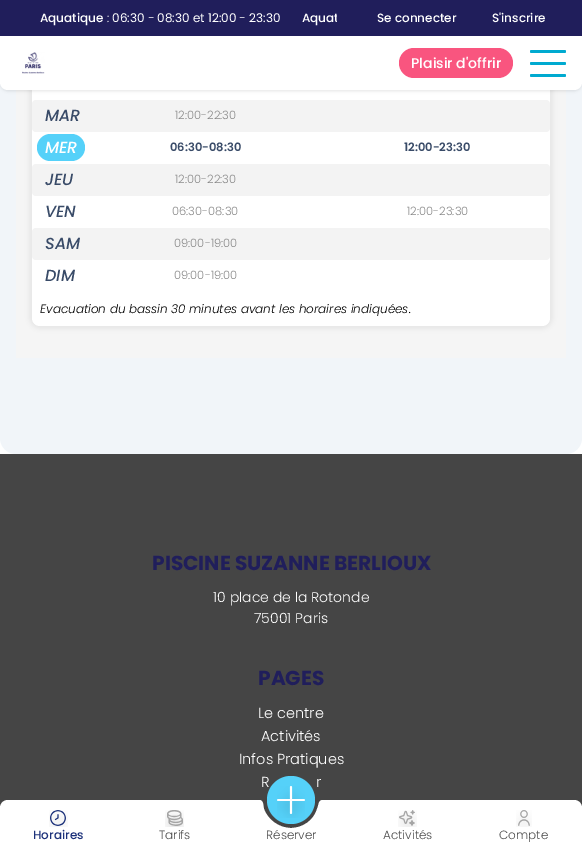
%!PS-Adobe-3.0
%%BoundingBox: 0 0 582 848
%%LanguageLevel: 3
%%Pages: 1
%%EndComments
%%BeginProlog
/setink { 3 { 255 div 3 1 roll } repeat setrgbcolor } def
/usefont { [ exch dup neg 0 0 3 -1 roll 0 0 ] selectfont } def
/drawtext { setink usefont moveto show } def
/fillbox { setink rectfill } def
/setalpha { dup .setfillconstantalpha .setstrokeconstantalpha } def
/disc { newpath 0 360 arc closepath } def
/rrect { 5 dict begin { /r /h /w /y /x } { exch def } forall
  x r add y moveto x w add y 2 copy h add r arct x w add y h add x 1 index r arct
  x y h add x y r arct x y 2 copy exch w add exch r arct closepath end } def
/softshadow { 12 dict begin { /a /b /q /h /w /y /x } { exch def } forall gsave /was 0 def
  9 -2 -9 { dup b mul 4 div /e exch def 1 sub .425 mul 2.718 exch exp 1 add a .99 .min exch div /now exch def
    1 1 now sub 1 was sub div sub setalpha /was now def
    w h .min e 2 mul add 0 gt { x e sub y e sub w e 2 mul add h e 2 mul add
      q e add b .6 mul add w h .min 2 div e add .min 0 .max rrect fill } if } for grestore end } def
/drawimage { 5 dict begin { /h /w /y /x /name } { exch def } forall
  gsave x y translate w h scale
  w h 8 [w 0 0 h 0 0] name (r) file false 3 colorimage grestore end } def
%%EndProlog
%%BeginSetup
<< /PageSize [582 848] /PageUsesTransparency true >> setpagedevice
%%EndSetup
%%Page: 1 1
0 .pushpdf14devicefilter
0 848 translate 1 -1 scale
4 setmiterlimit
0 0 582 848 255 255 255 fillbox
241 245 249 setink
0 -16 582 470 16 rrect fill
16 90 550 268 245 245 245 fillbox
0 0 0 setink
29 -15 524 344 11 2.5 0.06 softshadow
255 255 255 setink
32 -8 518 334 8 rrect fill
0 0 0 setink
0 37 582 54 8 1.5 0.1 softshadow
0 0 582 36 32 30 91 fillbox
(Aquatique) 40 22 /Poppins-Medium 12 255 255 255 drawtext
(:) 107 22 /Poppins-Light 12 255 255 255 drawtext
(06:30 - 08:30 et 12:00 - 23:30) 112 22 /Poppins-Regular 12 255 255 255 drawtext
gsave
24 9 313 18 rectclip
(Aquat) 302 22 /Poppins-Medium 12 255 255 255 drawtext
grestore
(Se connecter) 377 22 /Poppins-Medium 12 255 255 255 drawtext
(S'inscrire) 492 22 /Poppins-Medium 12 255 255 255 drawtext
0 36 moveto 582 36 lineto 582 82 lineto 582 86.5 578.5 90 574 90 curveto 8 90 lineto 3.5 90 0 86.5 0 82 curveto closepath fill
(assets/img1.rgb) 22 52 23 22 drawimage
249 85 127 setink
399 48 114 30 15 rrect fill
(Plaisir d'offrir) 411 68 /Poppins-Medium 14 255 255 255 drawtext
0 170 208 setink
530 50 36 3 1.5 rrect fill
530 62 36 3 1.5 rrect fill
530 74 36 3 1.5 rrect fill
243 243 243 setink
32 100 518 32 4 rrect fill
(MAR) 45 121 /Poppins-MediumItalic 16 57 75 104 drawtext
(12:00-22:30) 175 119 /Poppins-Light 11.5 136 136 136 drawtext
85 209 249 setink
37 134 48 27 13.5 rrect fill
(MER) 45 153 /Poppins-MediumItalic 16 255 255 255 drawtext
(06:30-08:30) 170 151 /Poppins-SemiBold 11.5 57 75 104 drawtext
(12:00-23:30) 404 151 /Poppins-SemiBold 11.5 57 75 104 drawtext
243 243 243 setink
32 164 518 32 4 rrect fill
(JEU) 45 185 /Poppins-MediumItalic 16 57 75 104 drawtext
(12:00-22:30) 175 183 /Poppins-Light 11.5 136 136 136 drawtext
(VEN) 45 217 /Poppins-MediumItalic 16 57 75 104 drawtext
(06:30-08:30) 172 215 /Poppins-Light 11.5 136 136 136 drawtext
(12:00-23:30) 407 215 /Poppins-Light 11.5 136 136 136 drawtext
243 243 243 setink
32 228 518 32 4 rrect fill
(SAM) 45 249 /Poppins-MediumItalic 16 57 75 104 drawtext
(09:00-19:00) 174 247 /Poppins-Light 11.5 136 136 136 drawtext
(DIM) 45 281 /Poppins-MediumItalic 16 57 75 104 drawtext
(09:00-19:00) 174 279 /Poppins-Light 11.5 136 136 136 drawtext
(Evacuation du bassin 30 minutes avant les horaires indiquées.) 40 313 /Poppins-LightItalic 12 0 0 0 drawtext
0 454 582 374 69 69 69 fillbox
255 255 255 setink
8 800 moveto 116 800 lineto 116 848 lineto 0 848 lineto 0 808 lineto 0 803.5 3.5 800 8 800 curveto closepath fill
(assets/img2.rgb) 49 810 19 17 drawimage
(Horaires) 33 839 /Poppins-Medium 12 28 49 122 drawtext
116 800 143 28 255 255 255 fillbox
(assets/img3.rgb) 165 810 19 17 drawimage
(Tarifs) 159 839 /Poppins-Light 12 76 76 76 drawtext
323 800 143 28 255 255 255 fillbox
323 800 moveto 323 848 lineto 259 848 lineto 259 800 lineto 264 800 263 806 264 809 curveto 268 820 279 828 291 828 curveto 303 828 314 820 317 809 curveto 319 805 318 800 323 800 curveto closepath fill
(R) 261 787 /Poppins-Light 14.5 255 255 255 drawtext
85 209 249 setink
291 800 24 disc fill
(assets/img4.rgb) 277 786 28 32 drawimage
(Réserver) 266 839 /Poppins-Light 12 76 76 76 drawtext
(assets/img5.rgb) 398 810 19 17 drawimage
(Activités) 383 839 /Poppins-Light 12 76 76 76 drawtext
255 255 255 setink
466 800 moveto 574 800 lineto 578.5 800 582 803.5 582 808 curveto 582 848 lineto 466 848 lineto closepath fill
(assets/img6.rgb) 516 810 16 17 drawimage
(Compte) 499 839 /Poppins-Light 12 76 76 76 drawtext
(PISCINE SUZANNE BERLIOUX) 152 570 /Poppins-Bold 20.2 32 30 91 drawtext
(10 place de la Rotonde) 213 602 /Poppins-Light 14 255 255 255 drawtext
(75001 Paris) 254 623 /Poppins-Light 14 255 255 255 drawtext
(PAGES) 258 685 /Poppins-Bold 20.2 32 30 91 drawtext
(Le centre) 258 718 /Poppins-Light 14.5 255 255 255 drawtext
(Activités) 261 741 /Poppins-Light 14.5 255 255 255 drawtext
(Infos Pratiques) 239 764 /Poppins-Light 14.5 255 255 255 drawtext
(r) 316 787 /Poppins-Light 14.5 255 255 255 drawtext
.poppdf14devicefilter showpage
%%EOF
